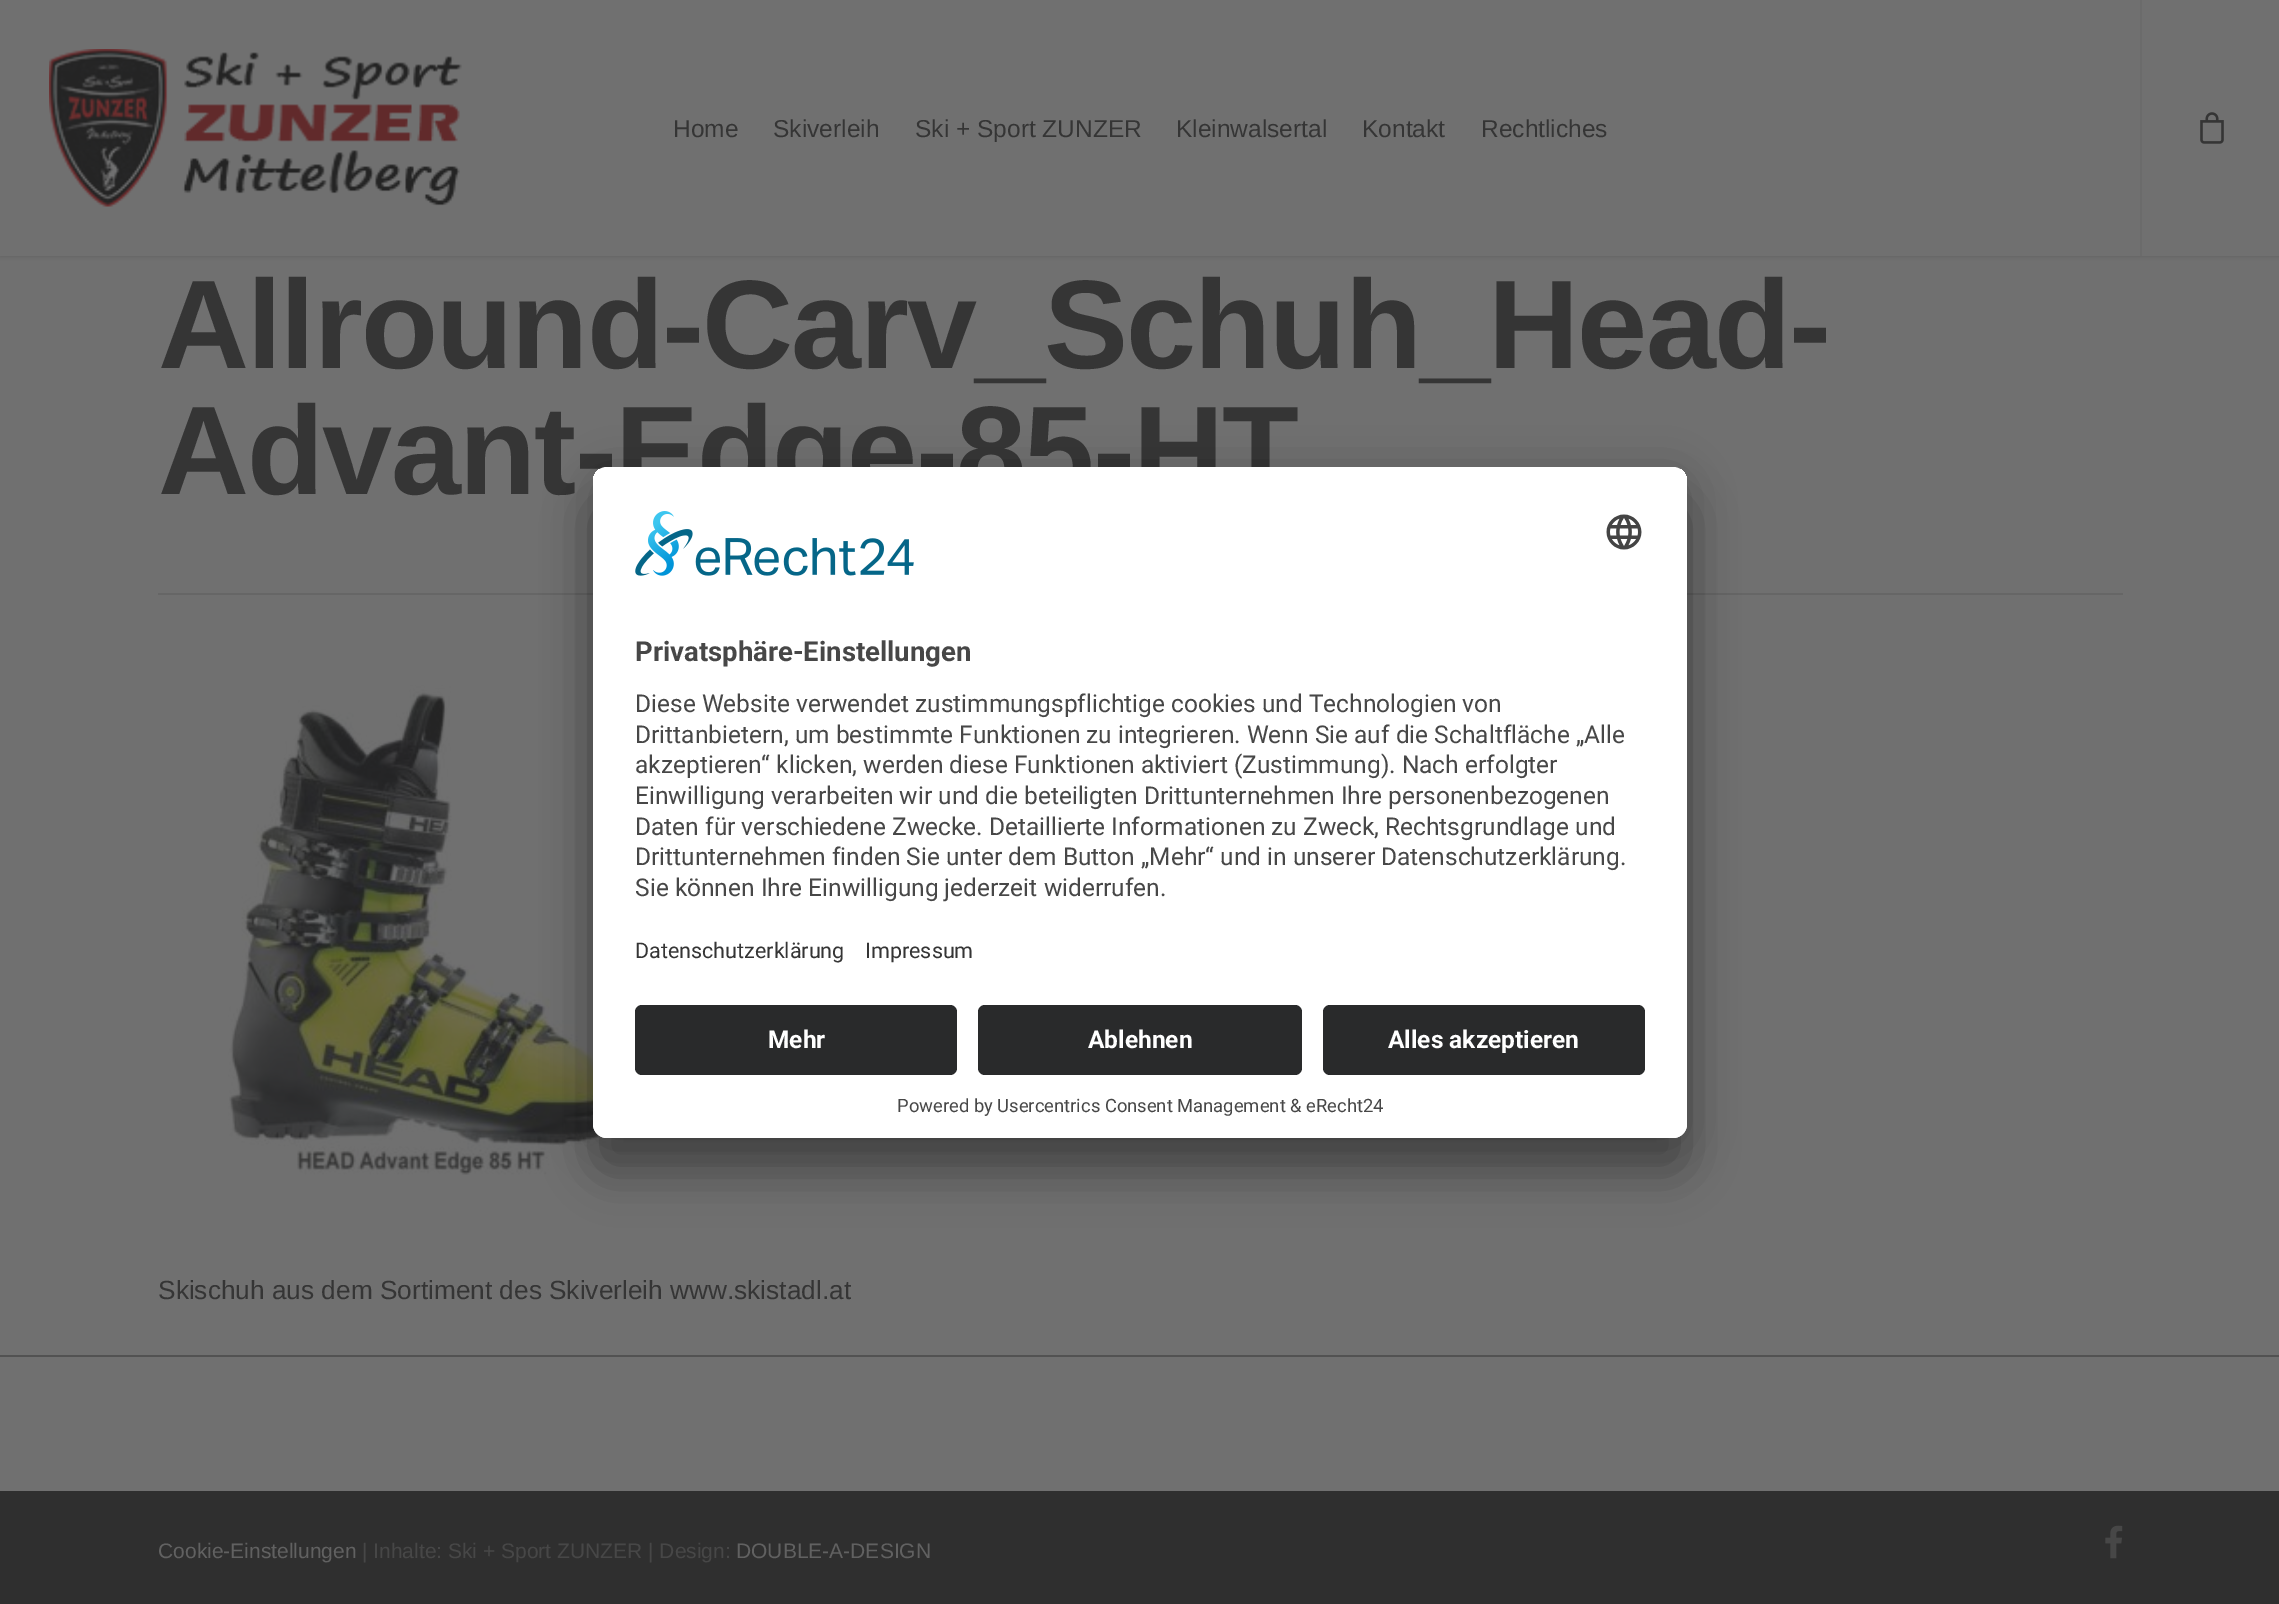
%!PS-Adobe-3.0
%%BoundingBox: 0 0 2279 1604
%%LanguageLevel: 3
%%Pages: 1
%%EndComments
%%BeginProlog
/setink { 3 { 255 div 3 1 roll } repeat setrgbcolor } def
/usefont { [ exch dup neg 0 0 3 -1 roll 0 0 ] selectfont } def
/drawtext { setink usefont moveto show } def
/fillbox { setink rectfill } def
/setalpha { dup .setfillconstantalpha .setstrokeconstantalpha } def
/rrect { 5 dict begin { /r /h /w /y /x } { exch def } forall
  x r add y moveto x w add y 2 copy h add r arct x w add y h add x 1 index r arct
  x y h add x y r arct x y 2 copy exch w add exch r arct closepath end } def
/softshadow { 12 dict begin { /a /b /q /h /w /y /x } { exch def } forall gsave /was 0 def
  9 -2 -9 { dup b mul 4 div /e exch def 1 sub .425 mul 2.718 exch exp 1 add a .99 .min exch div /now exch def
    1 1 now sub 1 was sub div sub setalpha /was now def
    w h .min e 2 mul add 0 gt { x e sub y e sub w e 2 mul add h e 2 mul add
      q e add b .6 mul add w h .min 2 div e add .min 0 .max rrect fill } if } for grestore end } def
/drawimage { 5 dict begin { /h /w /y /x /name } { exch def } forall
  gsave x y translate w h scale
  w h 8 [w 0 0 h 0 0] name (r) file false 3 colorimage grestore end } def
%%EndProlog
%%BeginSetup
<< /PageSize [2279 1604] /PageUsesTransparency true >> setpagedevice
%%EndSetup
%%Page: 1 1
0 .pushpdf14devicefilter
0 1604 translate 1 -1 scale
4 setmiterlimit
0 0 2279 1604 112 112 112 fillbox
36 36 36 setink
0 0 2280 256 0 2.5 0.22 softshadow
0 0 2279 256 112 112 112 fillbox
(assets/img1.rgb) 49 49 413 158 drawimage
(Home) 673 137 /LiberationSans-Regular 24.5 53 53 53 drawtext
(Skiverleih) 773 137 /LiberationSans-Regular 24.5 53 53 53 drawtext
(Ski + Sport ZUNZER) 915 137 /LiberationSans-Regular 24.5 53 53 53 drawtext
(Kleinwalsertal) 1176 137 /LiberationSans-Regular 24.5 53 53 53 drawtext
(Kontakt) 1362 137 /LiberationSans-Regular 24.5 53 53 53 drawtext
(Rechtliches) 1481 137 /LiberationSans-Regular 24.5 53 53 53 drawtext
2140 0 2 256 107 107 107 fillbox
(assets/img2.rgb) 2200 112 24 32 drawimage
158 593 1965 2 102 102 102 fillbox
/LiberationSans-Bold 126 usefont
53 53 53 setink
158 368 moveto -1.75 0 (Allround-Carv_Schuh_Head-) ashow
158 494 moveto -1.75 0 (Advant-Edge-85-HT) ashow
(assets/img3.rgb) 228 685 381 490 drawimage
(Skischuh aus dem Sortiment des Skiverleih www.skistadl.at) 158 1299 /LiberationSans-Regular 26.25 53 53 53 drawtext
0 1355 2279 2 82 82 82 fillbox
0 1491 2279 113 47 47 47 fillbox
(Cookie-Einstellungen) 158 1558 /LiberationSans-Regular 21 97 97 97 drawtext
(| Inhalte: Ski + Sport ZUNZER | Design:) 362 1558 /LiberationSans-Regular 21 71 71 71 drawtext
(DOUBLE-A-DESIGN) 736 1558 /LiberationSans-Regular 21 97 97 97 drawtext
(assets/img4.rgb) 2105 1525 18 34 drawimage
0 0 0 setink
593 502 1094 671 14 24.5 0.3 softshadow
593 476 1094 670 14 23 0.22 softshadow
255 255 255 setink
593 467 1094 671 14 rrect fill
gsave
593 467 1094 671 14 rrect clip newpath
607 467 moveto 1673 467 lineto 1680.5 467 1687 473.5 1687 481 curveto 1687 991 lineto 593 991 lineto 593 481 lineto 593 473.5 599.5 467 607 467 curveto closepath clip newpath
593 469 1094 522 255 255 255 fillbox
grestore
(assets/img5.rgb) 635 511 279 65 drawimage
(assets/img6.rgb) 1606 514 36 36 drawimage
(Privatsphäre-Einstellungen) 635 661 /Roboto-Bold 27.5 71 71 71 drawtext
(Diese Website verwendet zustimmungspflichtige cookies und Technologien von) 635 712 /Roboto-Regular 24.5 71 71 71 drawtext
(Drittanbietern, um bestimmte Funktionen zu integrieren. Wenn Sie auf die Schaltfläche „Alle) 635 743 /Roboto-Regular 24.5 71 71 71 drawtext
(akzeptieren“ klicken, werden diese Funktionen aktiviert \(Zustimmung\). Nach erfolgter) 635 773 /Roboto-Regular 24.5 71 71 71 drawtext
(Einwilligung verarbeiten wir und die beteiligten Drittunternehmen Ihre personenbezogenen) 635 804 /Roboto-Regular 24.5 71 71 71 drawtext
(Daten für verschiedene Zwecke. Detaillierte Informationen zu Zweck, Rechtsgrundlage und) 635 835 /Roboto-Regular 24.5 71 71 71 drawtext
(Drittunternehmen finden Sie unter dem Button „Mehr“ und in unserer Datenschutzerklärung.) 635 865 /Roboto-Regular 24.5 71 71 71 drawtext
(Sie können Ihre Einwilligung jederzeit widerrufen.) 635 896 /Roboto-Regular 24.5 71 71 71 drawtext
(Datenschutzerklärung) 635 958 /Roboto-Regular 21.5 53 53 53 drawtext
(Impressum) 865 958 /Roboto-Regular 21.5 53 53 53 drawtext
255 255 255 setink
593 991 moveto 1687 991 lineto 1687 1124 lineto 1687 1131.5 1680.5 1138 1673 1138 curveto 607 1138 lineto 599.5 1138 593 1131.5 593 1124 curveto closepath fill
41 42 43 setink
635 1005 322 70 7 rrect fill
(Mehr) 768 1048 /Roboto-Bold 24.5 255 255 255 drawtext
41 42 43 setink
978 1005 324 70 7 rrect fill
(Ablehnen) 1088 1048 /Roboto-Bold 24.5 255 255 255 drawtext
41 42 43 setink
1323 1005 322 70 7 rrect fill
(Alles akzeptieren) 1388 1048 /Roboto-Bold 24.5 255 255 255 drawtext
(Powered by Usercentrics Consent Management & eRecht24) 897 1112 /Roboto-Regular 18.4 71 71 71 drawtext
.poppdf14devicefilter showpage
%%EOF
